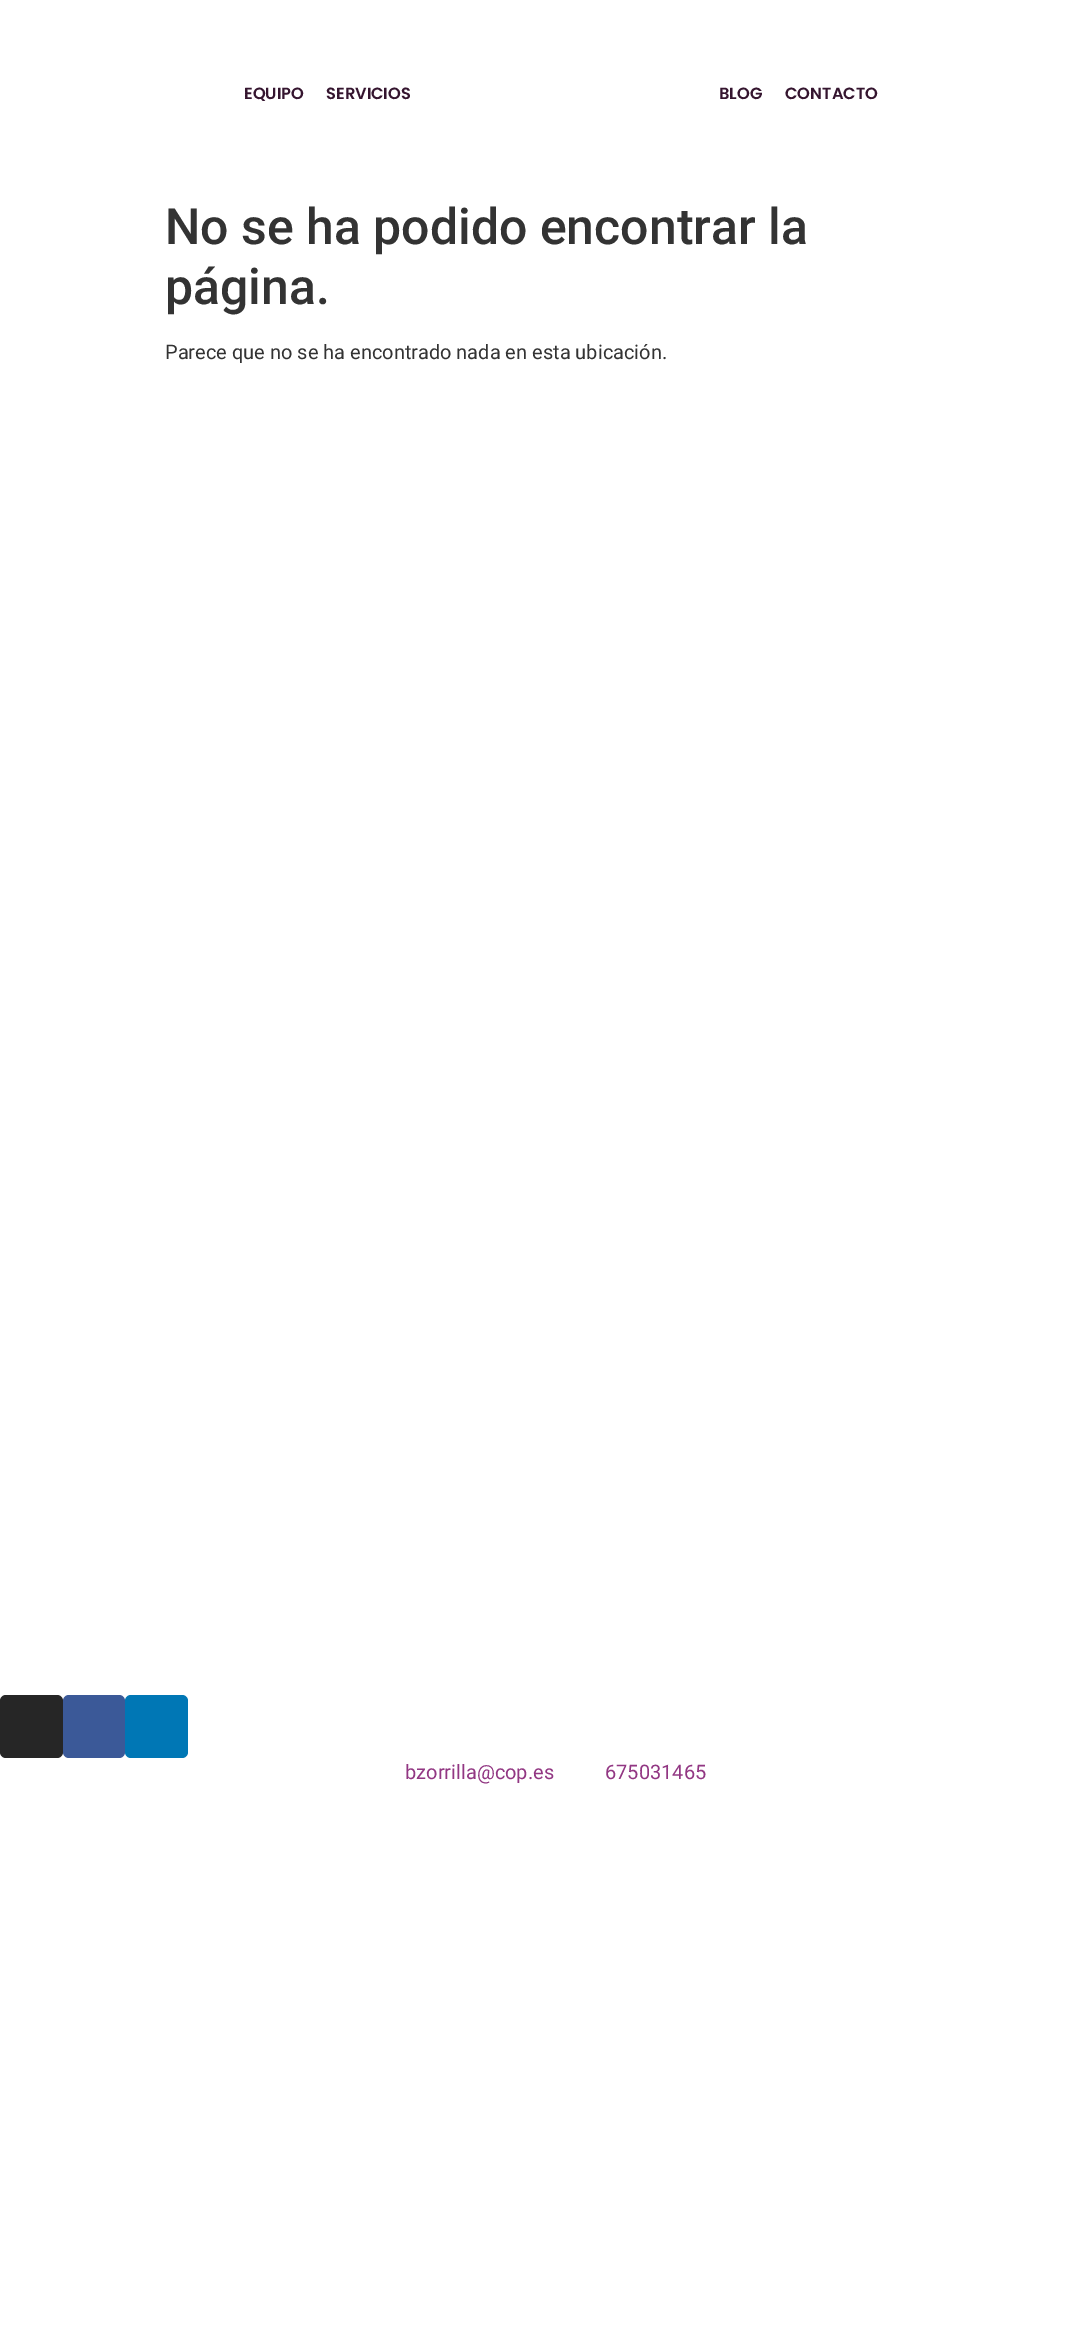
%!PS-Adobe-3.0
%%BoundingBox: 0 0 1079 2352
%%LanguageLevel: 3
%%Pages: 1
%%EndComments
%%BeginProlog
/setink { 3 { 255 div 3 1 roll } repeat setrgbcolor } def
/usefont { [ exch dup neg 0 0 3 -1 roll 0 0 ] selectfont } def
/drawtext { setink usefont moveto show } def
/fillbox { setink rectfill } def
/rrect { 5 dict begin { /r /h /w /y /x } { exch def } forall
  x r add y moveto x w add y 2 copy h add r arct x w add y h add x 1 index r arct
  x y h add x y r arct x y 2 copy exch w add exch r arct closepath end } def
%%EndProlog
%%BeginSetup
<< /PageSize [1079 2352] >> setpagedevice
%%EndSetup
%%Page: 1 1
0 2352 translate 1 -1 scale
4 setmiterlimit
0 0 1079 2352 255 255 255 fillbox
(EQUIPO) 244 99 /Poppins-SemiBold 16.25 53 21 47 drawtext
(SERVICIOS) 326 99 /Poppins-SemiBold 16.25 53 21 47 drawtext
(BLOG) 719 99 /Poppins-SemiBold 16.25 53 21 47 drawtext
(CONTACTO) 785 99 /Poppins-SemiBold 16.25 53 21 47 drawtext
(No se ha podido encontrar la) 165 244 /Roboto-Medium 50 51 51 51 drawtext
(página.) 165 304 /Roboto-Medium 50 51 51 51 drawtext
(Parece que no se ha encontrado nada en esta ubicación.) 165 359 /Roboto-Regular 20 51 51 51 drawtext
38 38 38 setink
0 1695 63 63 6 rrect fill
59 89 152 setink
63 1695 62 63 6 rrect fill
0 119 181 setink
125 1695 63 63 6 rrect fill
(bzorrilla@cop.es) 405 1779 /Roboto-Regular 20 146 55 131 drawtext
(675031465) 605 1779 /Roboto-Regular 20 146 55 131 drawtext
showpage
%%EOF
